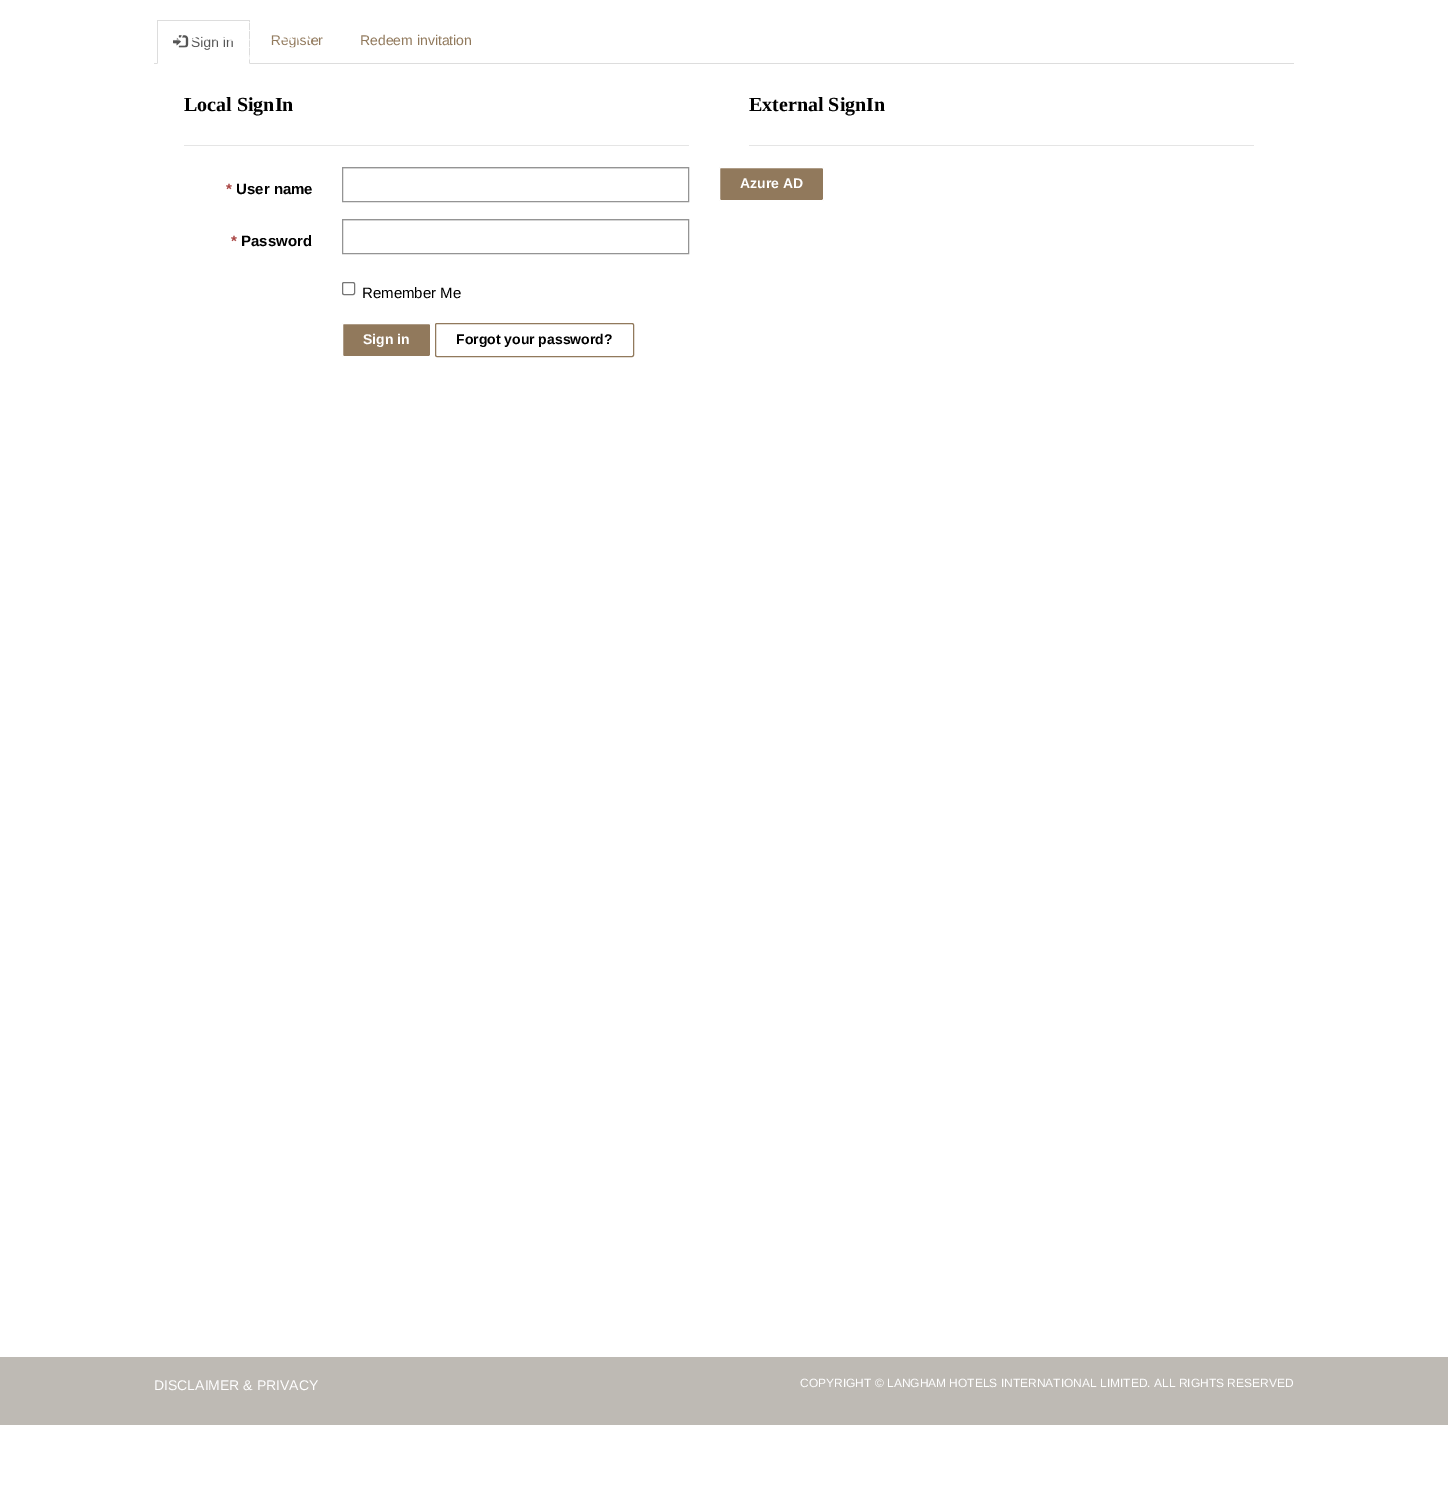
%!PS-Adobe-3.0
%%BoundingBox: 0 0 1448 1489
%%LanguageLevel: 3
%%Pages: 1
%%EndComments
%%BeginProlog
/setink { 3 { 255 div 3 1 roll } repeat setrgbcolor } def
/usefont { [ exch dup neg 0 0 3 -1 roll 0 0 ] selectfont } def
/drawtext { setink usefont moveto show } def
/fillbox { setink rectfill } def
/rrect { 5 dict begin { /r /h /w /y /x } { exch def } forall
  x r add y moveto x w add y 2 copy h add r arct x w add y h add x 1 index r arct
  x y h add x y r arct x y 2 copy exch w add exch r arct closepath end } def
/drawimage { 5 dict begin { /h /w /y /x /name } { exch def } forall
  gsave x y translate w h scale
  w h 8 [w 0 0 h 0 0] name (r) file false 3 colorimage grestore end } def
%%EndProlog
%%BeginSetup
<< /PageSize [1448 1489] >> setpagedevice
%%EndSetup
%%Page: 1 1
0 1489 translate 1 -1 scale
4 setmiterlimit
0 0 1448 1489 255 255 255 fillbox
154 63 1140 1 221 221 221 fillbox
157 63 93 1 255 255 255 fillbox
157 20 93 1 221 221 221 fillbox
250 20 moveto 250 64 lineto 249 63 lineto 249 21 lineto closepath fill
(assets/img2.rgb) 173 35 16 13 drawimage
(Sign in) 191 47 /LiberationSans-Regular 14 85 85 85 drawtext
(Register) 271 45 /LiberationSans-Regular 14 145 121 92 drawtext
(assets/img1.rgb) 173 22 139 38 drawimage
221 221 221 setink
157 64 moveto 157 20 lineto 158 21 lineto 158 63 lineto closepath fill
(Redeem invitation) 360 45 /LiberationSans-Regular 14 145 121 92 drawtext
184 145 505 1 229 229 229 fillbox
(Local SignIn) 184 111 /LiberationSerif-Bold 20 0 0 0 drawtext
(*) 226 194 /LiberationSans-Bold 15 169 68 66 drawtext
(User name) 236 194 /LiberationSans-Bold 15 0 0 0 drawtext
343 168 345 1 236 236 236 fillbox
148 148 148 setink
342.5 167.5 346 34 rectstroke
(*) 231 246 /LiberationSans-Bold 15 169 68 66 drawtext
(Password) 241 246 /LiberationSans-Bold 15 0 0 0 drawtext
343 220 345 1 236 236 236 fillbox
148 148 148 setink
342.5 219.5 346 34 rectstroke
118 118 118 setink
342.5 282.5 12 12 1.5 rrect stroke
(Remember Me) 362 298 /LiberationSans-Regular 15 0 0 0 drawtext
145 121 92 setink
342.5 323.5 88 33 1.5 rrect gsave fill grestore
255 255 255 setink
stroke
(Sign in) 363 344 /LiberationSans-Bold 14 255 255 255 drawtext
145 121 92 setink
435.5 323.5 198 33 1.5 rrect stroke
(Forgot your password?) 456 344 /LiberationSans-Bold 14 0 0 0 drawtext
749 145 505 1 229 229 229 fillbox
(External SignIn) 749 111 /LiberationSerif-Bold 20 0 0 0 drawtext
145 121 92 setink
719.5 167.5 104 33 1.5 rrect gsave fill grestore
255 255 255 setink
stroke
(Azure AD) 740 188 /LiberationSans-Bold 14 255 255 255 drawtext
0 1357 1448 68 190 186 180 fillbox
(DISCLAIMER & PRIVACY) 154 1390 /LiberationSans-Regular 14 255 255 255 drawtext
(COPYRIGHT © LANGHAM HOTELS INTERNATIONAL LIMITED. ALL RIGHTS RESERVED) 800 1387 /LiberationSans-Regular 12 255 255 255 drawtext
showpage
%%EOF
